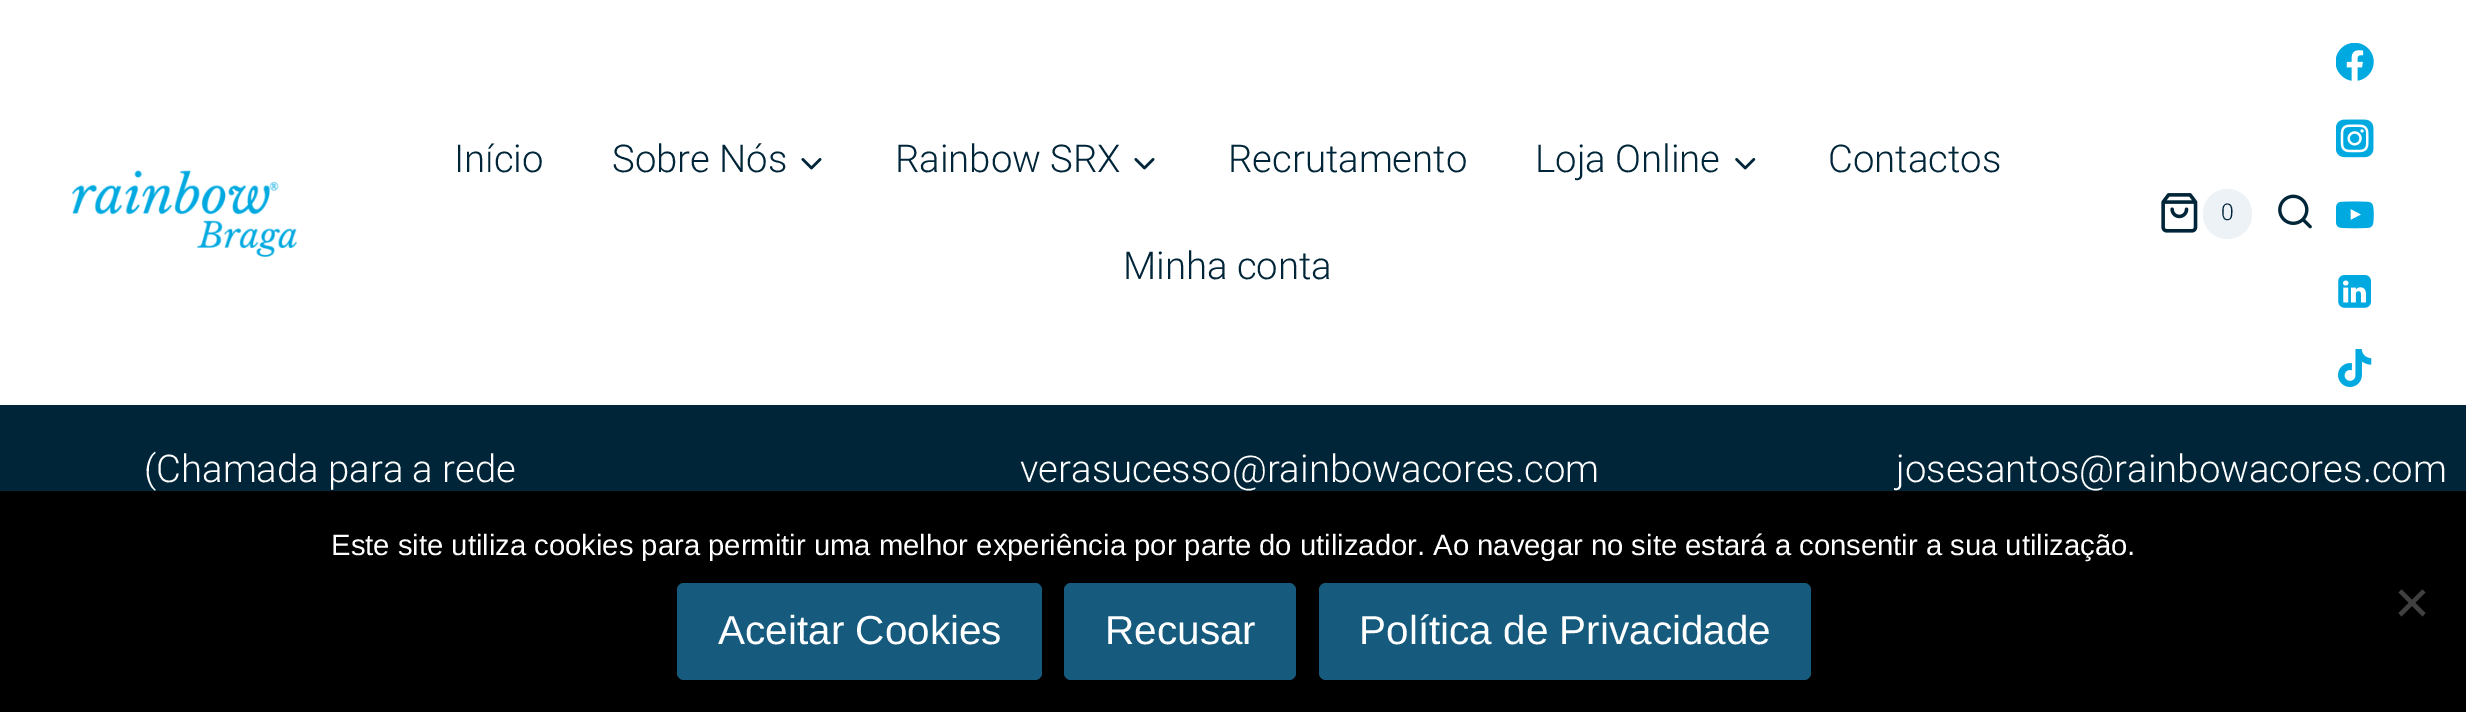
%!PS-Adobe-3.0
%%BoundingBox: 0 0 2466 712
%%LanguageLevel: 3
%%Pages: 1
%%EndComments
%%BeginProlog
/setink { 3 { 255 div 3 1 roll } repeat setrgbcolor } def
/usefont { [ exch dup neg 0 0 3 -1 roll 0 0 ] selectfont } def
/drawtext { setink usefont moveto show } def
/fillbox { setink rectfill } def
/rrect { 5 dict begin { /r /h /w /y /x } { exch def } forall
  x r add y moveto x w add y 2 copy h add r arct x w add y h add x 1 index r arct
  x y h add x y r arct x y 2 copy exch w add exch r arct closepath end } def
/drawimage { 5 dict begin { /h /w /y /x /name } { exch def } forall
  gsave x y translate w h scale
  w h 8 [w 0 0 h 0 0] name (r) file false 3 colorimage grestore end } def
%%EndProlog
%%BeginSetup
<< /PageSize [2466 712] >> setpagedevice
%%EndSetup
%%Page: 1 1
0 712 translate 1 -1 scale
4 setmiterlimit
0 0 2466 712 0 37 56 fillbox
0 0 2466 405 255 255 255 fillbox
(assets/img1.rgb) 72 170 225 87 drawimage
(Início) 454 172 /Roboto-Light 38.25 0 37 56 drawtext
(Sobre Nós) 612 172 /Roboto-Light 38.25 0 37 56 drawtext
(assets/img2.rgb) 801 158 21 12 drawimage
(Rainbow SRX) 895 172 /Roboto-Light 38.25 0 37 56 drawtext
(assets/img2.rgb) 1134 158 21 12 drawimage
(Recrutamento) 1228 172 /Roboto-Light 38.25 0 37 56 drawtext
(Loja Online) 1535 172 /Roboto-Light 38.25 0 37 56 drawtext
(assets/img3.rgb) 1735 158 21 12 drawimage
(Contactos) 1828 172 /Roboto-Light 38.25 0 37 56 drawtext
(Minha conta) 1123 279 /Roboto-Light 38.25 0 37 56 drawtext
(assets/img4.rgb) 2161 193 37 40 drawimage
237 242 247 setink
2203 189 49 50 24.5 rrect fill
(0) 2221 220 /Roboto-Light 23 0 37 56 drawtext
(assets/img5.rgb) 2278 194 34 35 drawimage
(assets/img6.rgb) 2336 43 38 38 drawimage
(assets/img7.rgb) 2336 119 38 39 drawimage
(assets/img8.rgb) 2336 201 38 28 drawimage
(assets/img9.rgb) 2338 275 33 33 drawimage
(assets/img10.rgb) 2338 349 34 38 drawimage
(\(Chamada para a rede) 144 482 /Roboto-Light 38.25 255 255 255 drawtext
(verasucesso@rainbowacores.com) 1020 482 /Roboto-Light 38.25 255 255 255 drawtext
(josesantos@rainbowacores.com) 1896 482 /Roboto-Light 38.25 255 255 255 drawtext
0 491 2466 221 0 0 0 fillbox
(Este site utiliza cookies para permitir uma melhor experiência por parte do utilizador. Ao navegar no site estará a consentir a sua utilização.) 331 555 /LiberationSans-Regular 29.25 255 255 255 drawtext
64 64 64 setink
2422.5 589.5 moveto 2425.5 592.5 lineto 2401.5 616.5 lineto 2398.5 613 lineto closepath fill
2398.5 592.5 moveto 2401.5 589.5 lineto 2425.5 613 lineto 2422.5 616.5 lineto closepath fill
22 91 126 setink
677 583 365 97 7 rrect fill
(Aceitar Cookies) 718 644 /LiberationSans-Regular 40.5 255 255 255 drawtext
22 91 126 setink
1064 583 232 97 7 rrect fill
(Recusar) 1105 644 /LiberationSans-Regular 40.5 255 255 255 drawtext
22 91 126 setink
1319 583 492 97 7 rrect fill
(Política de Privacidade) 1359 644 /LiberationSans-Regular 40.5 255 255 255 drawtext
showpage
%%EOF
